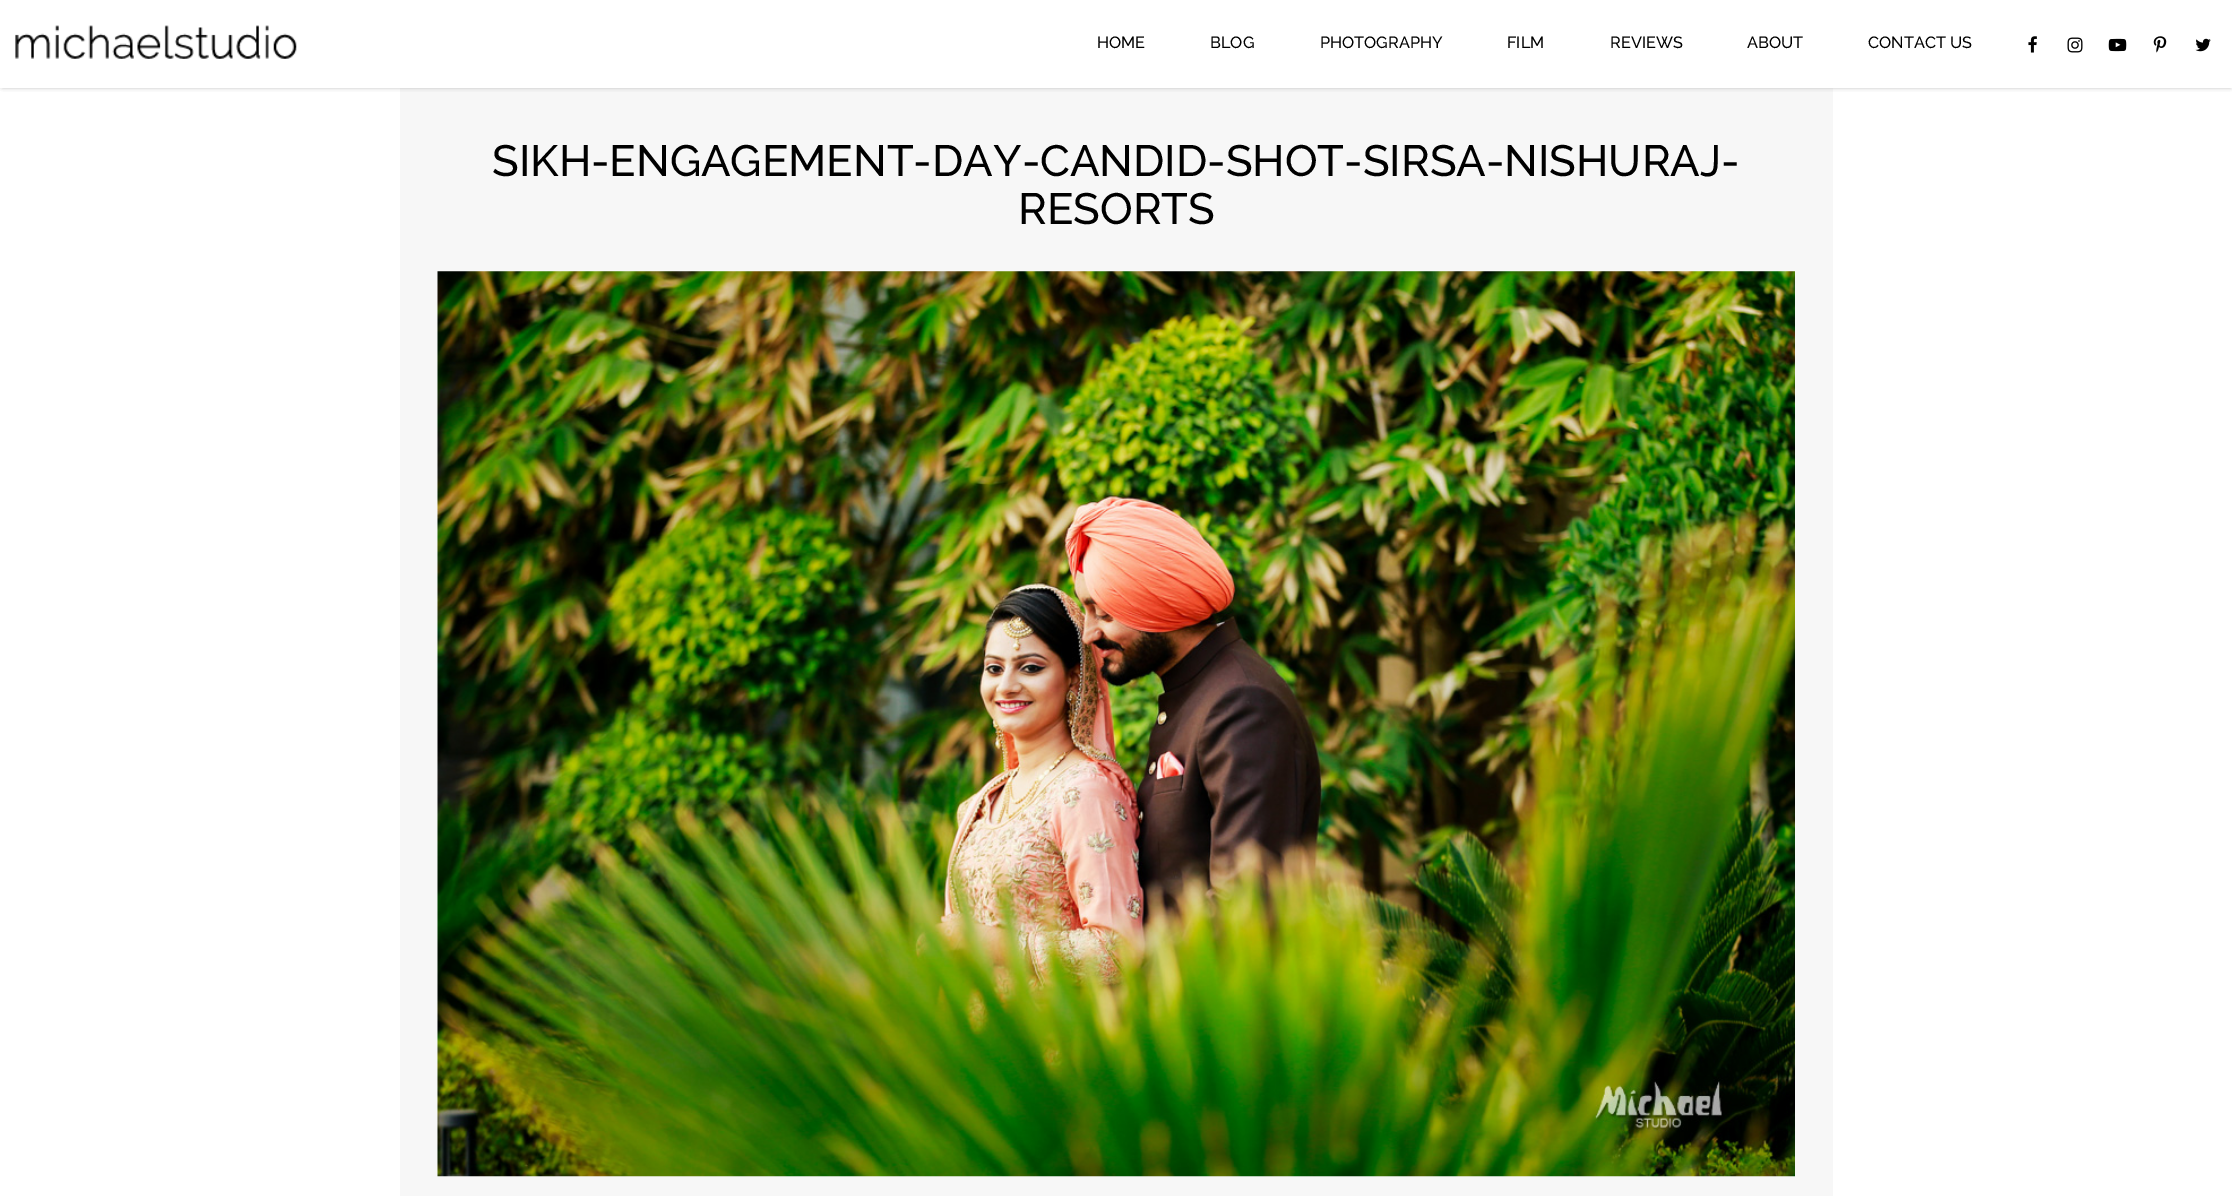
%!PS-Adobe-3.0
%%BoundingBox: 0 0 2232 1196
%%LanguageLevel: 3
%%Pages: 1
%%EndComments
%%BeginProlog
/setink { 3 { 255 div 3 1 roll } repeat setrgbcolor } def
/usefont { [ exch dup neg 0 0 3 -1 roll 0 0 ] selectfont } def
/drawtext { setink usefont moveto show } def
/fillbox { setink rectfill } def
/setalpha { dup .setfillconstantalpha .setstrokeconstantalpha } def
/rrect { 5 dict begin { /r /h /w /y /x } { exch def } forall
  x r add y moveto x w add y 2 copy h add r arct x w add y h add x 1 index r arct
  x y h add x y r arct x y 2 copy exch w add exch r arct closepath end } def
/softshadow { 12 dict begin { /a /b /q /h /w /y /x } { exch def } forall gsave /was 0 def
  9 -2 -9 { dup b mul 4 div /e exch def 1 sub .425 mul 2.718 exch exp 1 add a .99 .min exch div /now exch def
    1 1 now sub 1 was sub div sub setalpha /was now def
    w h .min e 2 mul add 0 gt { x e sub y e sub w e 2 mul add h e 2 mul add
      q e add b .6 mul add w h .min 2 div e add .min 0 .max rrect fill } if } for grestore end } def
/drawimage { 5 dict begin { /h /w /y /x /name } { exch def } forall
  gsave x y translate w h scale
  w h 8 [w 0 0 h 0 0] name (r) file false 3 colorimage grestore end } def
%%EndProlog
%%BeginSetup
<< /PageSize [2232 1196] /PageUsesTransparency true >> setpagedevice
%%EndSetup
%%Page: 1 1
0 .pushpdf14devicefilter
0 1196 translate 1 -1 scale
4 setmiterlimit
0 0 2232 1196 255 255 255 fillbox
400 88 1433 1108 247 247 247 fillbox
51 51 51 setink
3 3 2227 82 0 3 1 softshadow
0 0 2232 88 255 255 255 fillbox
(assets/img1.rgb) 15 25 282 34 drawimage
(HOME) 1097 48 /Raleway-Medium 16.25 0 0 0 drawtext
(BLOG) 1210 48 /Raleway-Medium 16.25 0 0 0 drawtext
(PHOTOGRAPHY) 1320 48 /Raleway-Medium 16.25 0 0 0 drawtext
(FILM) 1507 48 /Raleway-Medium 16.25 0 0 0 drawtext
(REVIEWS) 1610 48 /Raleway-Medium 16.25 0 0 0 drawtext
(ABOUT) 1747 48 /Raleway-Medium 16.25 0 0 0 drawtext
(CONTACT US) 1868 48 /Raleway-Medium 16.25 0 0 0 drawtext
(assets/img2.rgb) 2028 36 9 17 drawimage
(assets/img3.rgb) 2067 37 16 16 drawimage
(assets/img4.rgb) 2108 38 19 14 drawimage
(assets/img5.rgb) 2153 36 14 17 drawimage
(assets/img6.rgb) 2195 38 16 14 drawimage
(SIKH-ENGAGEMENT-DAY-CANDID-SHOT-SIRSA-NISHURAJ-) 492 176 /Raleway-Medium 43.75 0 0 0 drawtext
(RESORTS) 1018 224 /Raleway-Medium 43.75 0 0 0 drawtext
(assets/img7.rgb) 437 271 1358 906 drawimage
.poppdf14devicefilter showpage
%%EOF
